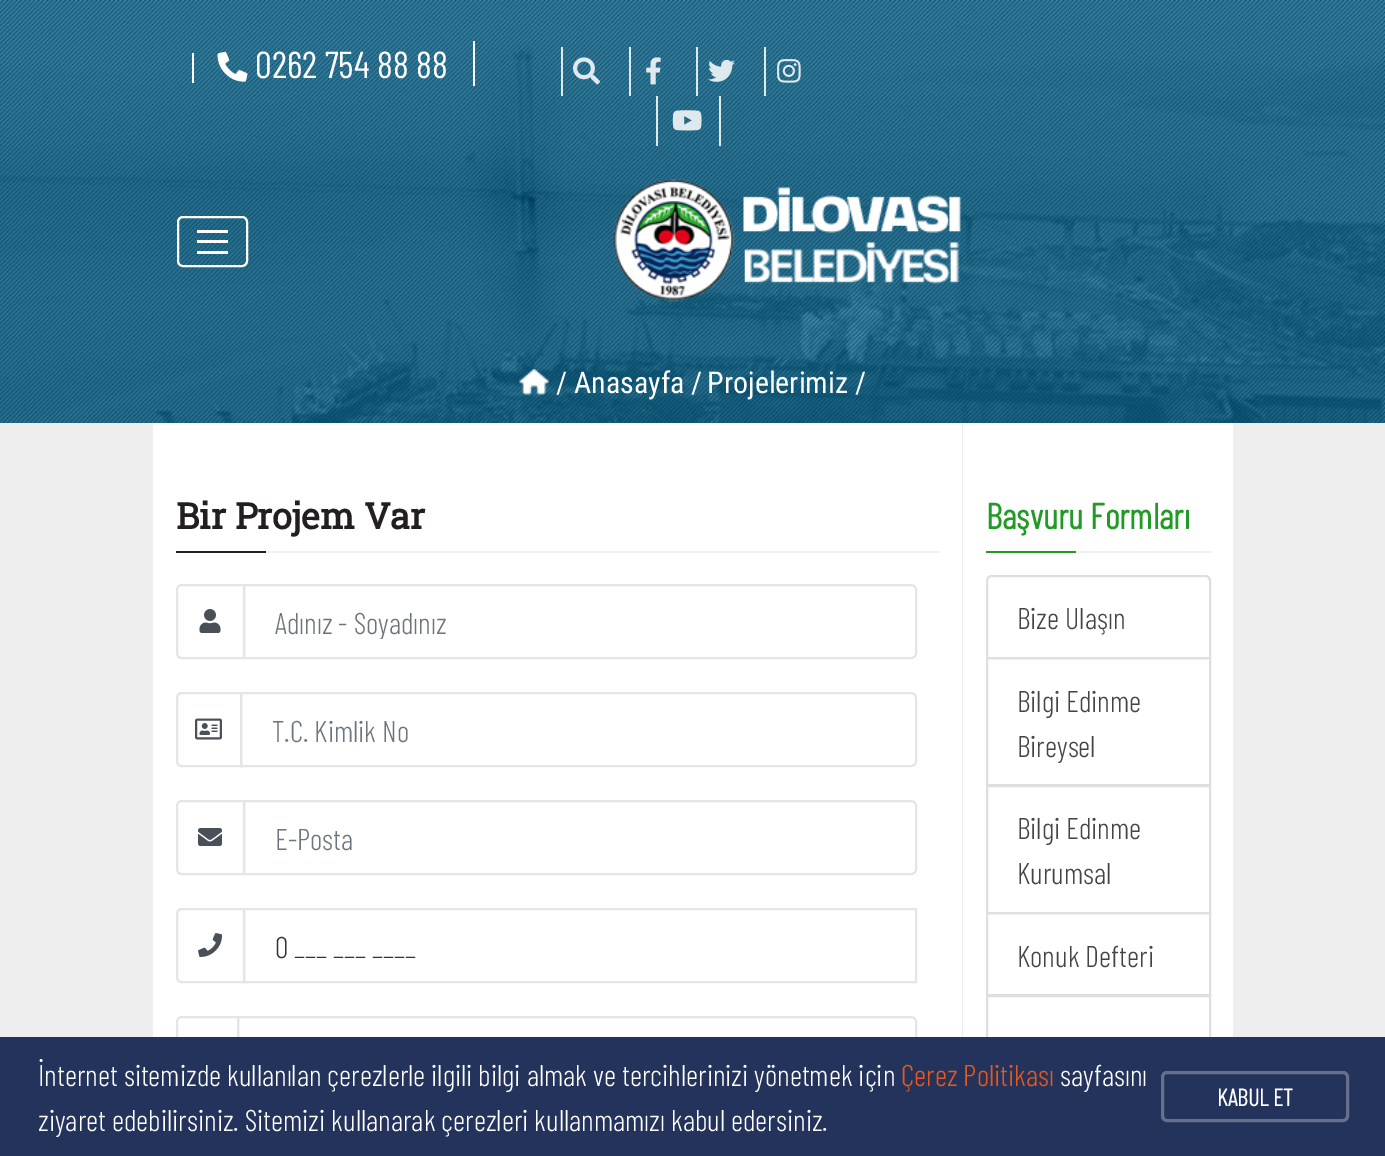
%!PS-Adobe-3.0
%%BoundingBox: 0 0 1385 1156
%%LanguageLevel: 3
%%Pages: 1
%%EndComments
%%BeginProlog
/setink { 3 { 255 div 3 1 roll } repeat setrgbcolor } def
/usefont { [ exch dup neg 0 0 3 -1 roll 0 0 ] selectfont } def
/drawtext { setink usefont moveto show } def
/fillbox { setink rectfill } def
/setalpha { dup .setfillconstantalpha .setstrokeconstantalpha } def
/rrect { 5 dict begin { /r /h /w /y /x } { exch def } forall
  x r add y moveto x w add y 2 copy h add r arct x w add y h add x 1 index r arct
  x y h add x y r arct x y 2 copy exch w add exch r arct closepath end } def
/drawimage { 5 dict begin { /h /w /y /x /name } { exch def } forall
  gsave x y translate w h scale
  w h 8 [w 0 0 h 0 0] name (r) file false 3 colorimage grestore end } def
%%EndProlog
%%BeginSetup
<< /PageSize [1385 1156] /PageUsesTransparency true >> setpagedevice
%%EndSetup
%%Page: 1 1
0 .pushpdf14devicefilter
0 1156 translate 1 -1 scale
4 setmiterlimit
0 0 1385 1156 255 255 255 fillbox
(assets/img1.rgb) 0 0 1385 423 drawimage
192 53 2 30 255 255 255 fillbox
473 41 2 45 255 255 255 fillbox
(assets/img2.rgb) 217 51 31 31 drawimage
(0262 754 88 88) 255 78 /BarlowCondensed-Regular 37.5 255 255 255 drawtext
0.85 setalpha
561 47 2 49 255 255 255 fillbox
1 setalpha
(assets/img3.rgb) 573 57 27 28 drawimage
0.85 setalpha
629 47 2 49 255 255 255 fillbox
1 setalpha
(assets/img4.rgb) 646 57 15 28 drawimage
0.85 setalpha
696 47 2 49 255 255 255 fillbox
1 setalpha
(assets/img5.rgb) 708 59 27 23 drawimage
0.85 setalpha
764 47 2 49 255 255 255 fillbox
1 setalpha
(assets/img6.rgb) 777 59 24 24 drawimage
0.85 setalpha
719 96 2 50 255 255 255 fillbox
656 96 2 50 255 255 255 fillbox
1 setalpha
(assets/img7.rgb) 672 110 30 21 drawimage
2 setlinewidth
178 217 69 49 5 rrect stroke
197 230 31 3 255 255 255 fillbox
197 240 31 3 255 255 255 fillbox
197 251 31 3 255 255 255 fillbox
(assets/img8.rgb) 613 179 348 123 drawimage
(assets/img9.rgb) 519 369 30 26 drawimage
(/ Anasayfa /) 556 393 /RobotoCondensed-Regular 30 255 255 255 drawtext
(Projelerimiz /) 707 393 /RobotoCondensed-Regular 30 255 255 255 drawtext
0 423 1385 614 239 238 239 fillbox
153 423 809 614 255 255 255 fillbox
(Bir Projem Var) 176 529 /RobotoSlab-Bold 36 35 31 32 drawtext
176 551 90 2 35 31 32 fillbox
266 551 673 2 238 240 239 fillbox
229 229 229 setink
182 585 moveto 244 585 lineto 244 658 lineto 182 658 lineto 179 658 177 656 177 653 curveto 177 590 lineto 177 587 179 585 182 585 curveto closepath stroke
(assets/img10.rgb) 199 609 22 24 drawimage
244 585 moveto 911 585 lineto 914 585 916 587 916 590 curveto 916 653 lineto 916 656 914 658 911 658 curveto 244 658 lineto closepath stroke
gsave
275 603 610 36 rectclip
(Adınız - Soyadınız) 275 634 /BarlowCondensed-Light 30 108 117 125 drawtext
grestore
182 693 moveto 241 693 lineto 241 766 lineto 182 766 lineto 179 766 177 764 177 761 curveto 177 698 lineto 177 695 179 693 182 693 curveto closepath stroke
(assets/img11.rgb) 195 718 27 22 drawimage
241 693 moveto 911 693 lineto 914 693 916 695 916 698 curveto 916 761 lineto 916 764 914 766 911 766 curveto 241 766 lineto closepath stroke
(T.C. Kimlik No) 272 742 /BarlowCondensed-Light 30 108 117 125 drawtext
229 229 229 setink
182 801 moveto 244 801 lineto 244 874 lineto 182 874 lineto 179 874 177 872 177 869 curveto 177 806 lineto 177 803 179 801 182 801 curveto closepath stroke
(assets/img12.rgb) 198 828 24 18 drawimage
244 801 moveto 911 801 lineto 914 801 916 803 916 806 curveto 916 869 lineto 916 872 914 874 911 874 curveto 244 874 lineto closepath stroke
(E-Posta) 275 850 /BarlowCondensed-Light 30 108 117 125 drawtext
229 229 229 setink
182 909 moveto 244 909 lineto 244 982 lineto 182 982 lineto 179 982 177 980 177 977 curveto 177 914 lineto 177 911 179 909 182 909 curveto closepath stroke
(assets/img13.rgb) 198 933 25 24 drawimage
244 909 672 73 rectstroke
(0 ___ ___ ____) 275 958 /BarlowCondensed-Light 30 51 51 51 drawtext
229 229 229 setink
182 1017 moveto 238 1017 lineto 238 1090 lineto 182 1090 lineto 179 1090 177 1088 177 1085 curveto 177 1022 lineto 177 1019 179 1017 182 1017 curveto closepath stroke
238 1017 moveto 911 1017 lineto 914 1017 916 1019 916 1022 curveto 916 1085 lineto 916 1088 914 1090 911 1090 curveto 238 1090 lineto closepath stroke
963 423 270 614 255 255 255 fillbox
(Başvuru Formları) 986 529 /BarlowCondensed-Bold 36 34 154 38 drawtext
986 551 90 2 34 154 38 fillbox
1076 551 135 2 238 240 239 fillbox
223 223 223 setink
992 576 moveto 1205 576 lineto 1208 576 1210 578 1210 581 curveto 1210 658 lineto 987 658 lineto 987 581 lineto 987 578 989 576 992 576 curveto closepath stroke
(Bize Ulaşın) 1017 629 /BarlowCondensed-Light 30 68 68 70 drawtext
223 223 223 setink
987 658 223 127 rectstroke
(Bilgi Edinme) 1017 712 /BarlowCondensed-Light 30 68 68 70 drawtext
(Bireysel) 1017 757 /BarlowCondensed-Light 30 68 68 70 drawtext
223 223 223 setink
987 786 223 127 rectstroke
(Bilgi Edinme) 1017 839 /BarlowCondensed-Light 30 68 68 70 drawtext
(Kurumsal) 1017 884 /BarlowCondensed-Light 30 68 68 70 drawtext
223 223 223 setink
987 913 223 82 rectstroke
(Konuk Defteri) 1017 967 /BarlowCondensed-Light 30 68 68 70 drawtext
223 223 223 setink
987 996 223 127 rectstroke
0 1037 1385 119 36 51 91 fillbox
(İnternet sitemizde kullanılan çerezlerle ilgili bilgi almak ve tercihlerinizi yönetmek için) 38 1086 /BarlowCondensed-Light 30 255 255 255 drawtext
(Çerez Politikası) 901 1086 /BarlowCondensed-Light 30 231 88 26 drawtext
(sayfasını) 1060 1086 /BarlowCondensed-Light 30 255 255 255 drawtext
(ziyaret edebilirsiniz. Sitemizi kullanarak çerezleri kullanmamızı kabul edersiniz.) 38 1131 /BarlowCondensed-Light 30 255 255 255 drawtext
102 112 140 setink
3 setlinewidth
1162.5 1072.5 185 48 4.5 rrect stroke
(KABUL ET) 1217 1106 /BarlowCondensed-Bold 24 255 255 255 drawtext
.poppdf14devicefilter showpage
%%EOF
